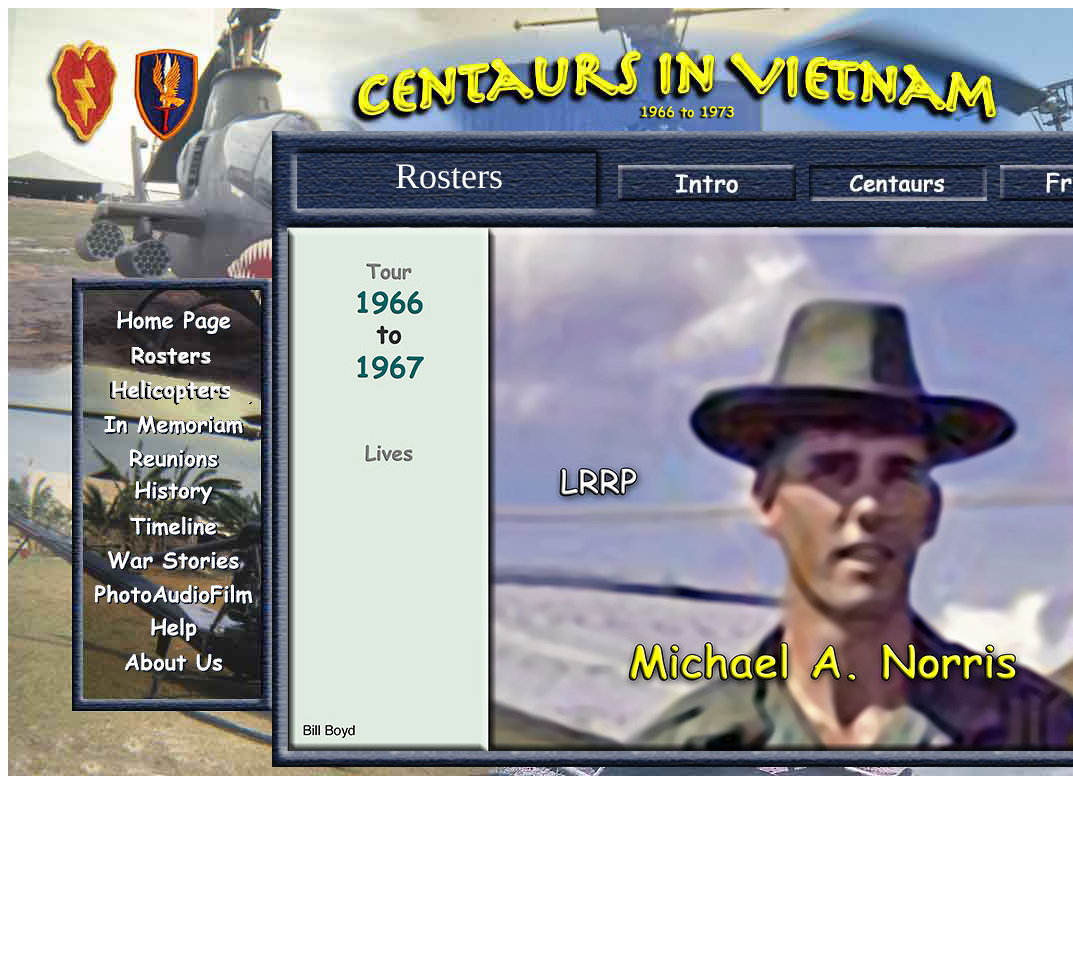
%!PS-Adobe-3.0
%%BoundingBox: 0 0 1073 971
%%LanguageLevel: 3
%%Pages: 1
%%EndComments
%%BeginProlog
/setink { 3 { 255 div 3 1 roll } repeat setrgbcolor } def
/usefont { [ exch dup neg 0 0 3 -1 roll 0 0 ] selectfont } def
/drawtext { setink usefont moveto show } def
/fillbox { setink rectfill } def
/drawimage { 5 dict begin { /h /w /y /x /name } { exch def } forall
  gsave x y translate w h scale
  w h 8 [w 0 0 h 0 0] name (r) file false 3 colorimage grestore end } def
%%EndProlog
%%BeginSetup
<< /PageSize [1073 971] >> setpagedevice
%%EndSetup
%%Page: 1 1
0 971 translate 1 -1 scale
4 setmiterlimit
0 0 1073 971 255 255 255 fillbox
(assets/img1.rgb) 8 8 1065 768 drawimage
(assets/img2.rgb) 272 131 801 636 drawimage
(Rosters) 395 188 /LiberationSerif-Regular 36 255 255 255 drawtext
(assets/img3.rgb) 618 165 178 36 drawimage
(assets/img4.rgb) 809 165 178 36 drawimage
(assets/img5.rgb) 1000 165 73 36 drawimage
(assets/img6.rgb) 287 228 786 523 drawimage
(assets/img7.rgb) 117 311 115 24 drawimage
(assets/img8.rgb) 130 347 81 19 drawimage
(assets/img9.rgb) 110 380 142 25 drawimage
(assets/img10.rgb) 104 415 140 20 drawimage
(assets/img11.rgb) 130 449 89 19 drawimage
(assets/img12.rgb) 135 481 79 24 drawimage
(assets/img13.rgb) 130 516 88 21 drawimage
(assets/img14.rgb) 108 551 132 19 drawimage
(assets/img15.rgb) 95 584 158 21 drawimage
(assets/img16.rgb) 151 617 47 25 drawimage
(assets/img17.rgb) 125 652 99 20 drawimage
showpage
%%EOF
